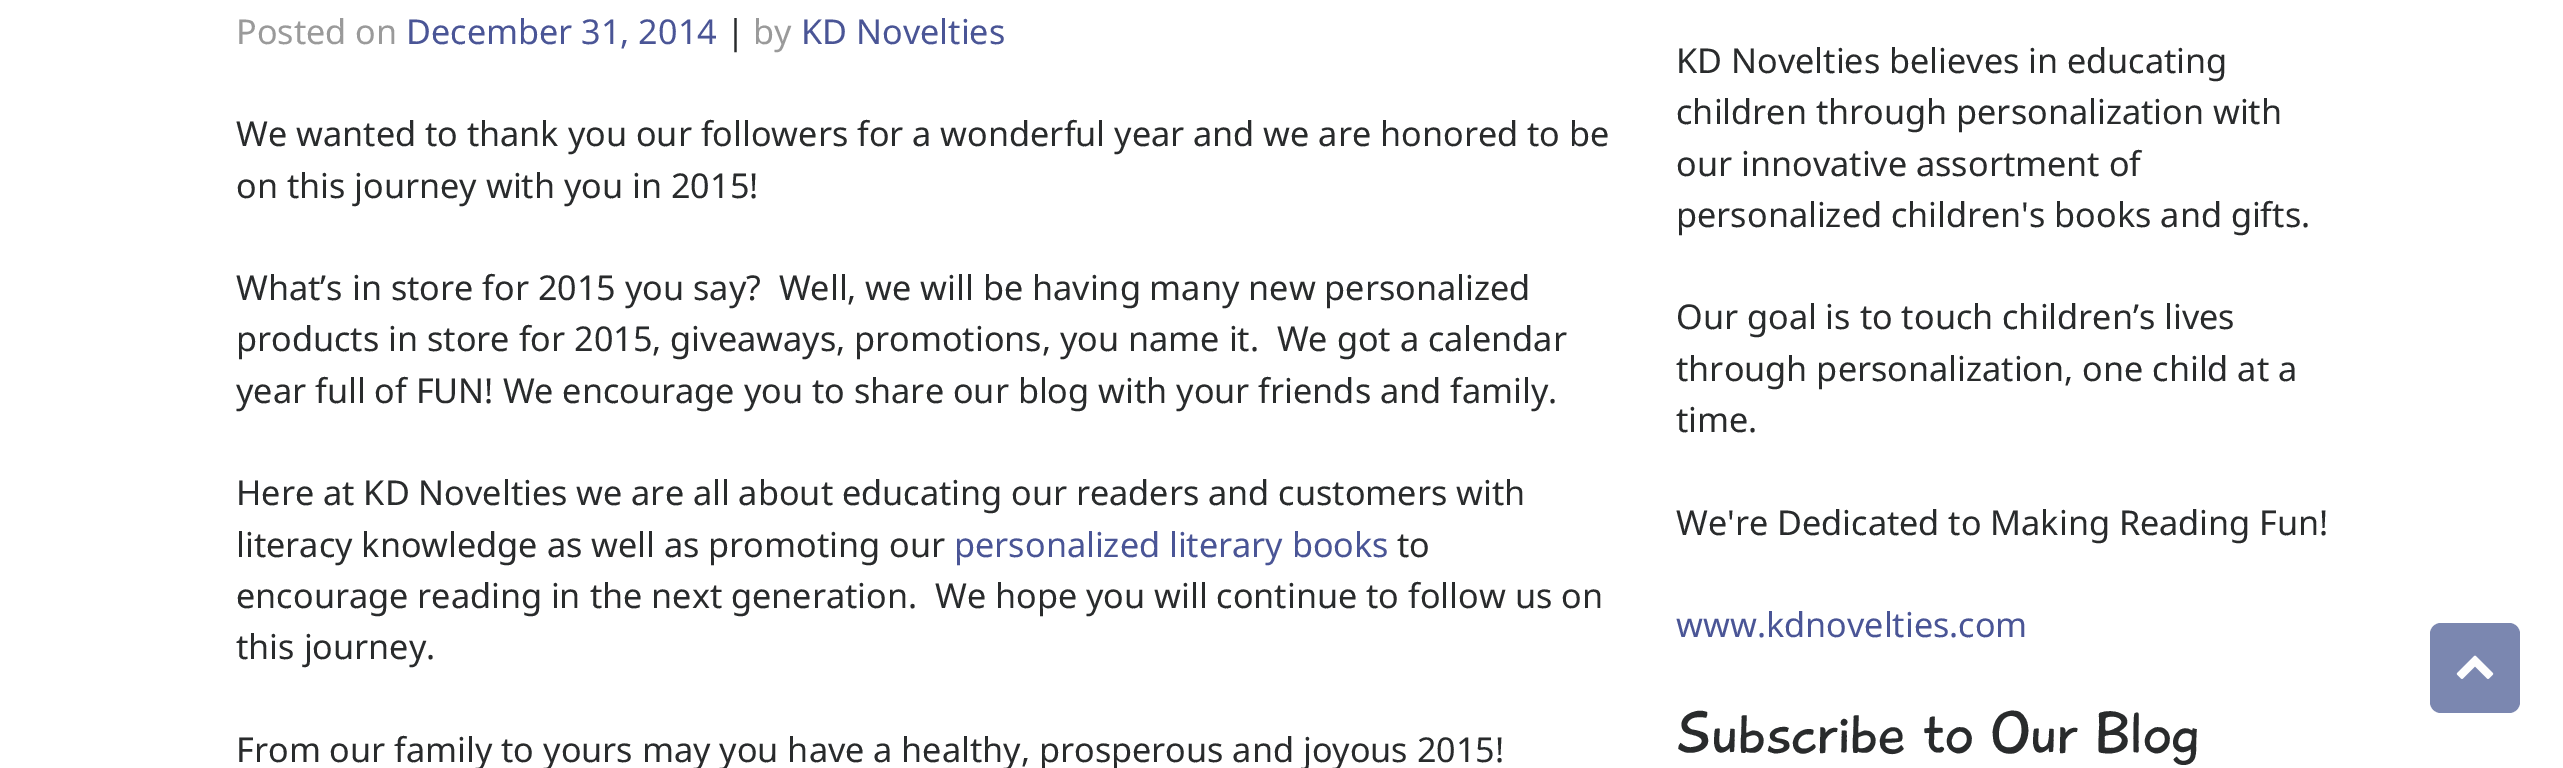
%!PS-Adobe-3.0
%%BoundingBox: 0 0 2563 768
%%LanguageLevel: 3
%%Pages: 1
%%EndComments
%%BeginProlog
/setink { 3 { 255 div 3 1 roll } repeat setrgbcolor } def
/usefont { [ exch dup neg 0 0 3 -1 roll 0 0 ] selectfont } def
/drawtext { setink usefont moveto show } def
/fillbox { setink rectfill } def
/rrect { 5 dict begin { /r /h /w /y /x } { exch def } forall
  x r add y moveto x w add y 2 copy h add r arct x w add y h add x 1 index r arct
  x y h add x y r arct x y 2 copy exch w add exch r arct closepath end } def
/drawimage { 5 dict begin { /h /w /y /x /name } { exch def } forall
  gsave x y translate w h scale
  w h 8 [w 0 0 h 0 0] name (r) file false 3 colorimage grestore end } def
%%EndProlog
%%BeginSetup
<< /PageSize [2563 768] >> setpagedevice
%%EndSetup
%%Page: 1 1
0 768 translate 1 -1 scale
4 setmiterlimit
0 0 2563 768 255 255 255 fillbox
(Posted on) 236 44 /NotoSans-Regular 34.2 154 154 154 drawtext
(December 31, 2014) 406 44 /NotoSans-Regular 34.2 74 85 150 drawtext
(|) 726 44 /NotoSans-Regular 34.2 41 43 44 drawtext
(by) 753 44 /NotoSans-Regular 34.2 154 154 154 drawtext
(KD Novelties) 801 44 /NotoSans-Regular 34.2 74 85 150 drawtext
(We wanted to thank you our followers for a wonderful year and we are honored to be) 236 146 /NotoSans-Regular 34.2 41 43 44 drawtext
(on this journey with you in 2015!) 236 198 /NotoSans-Regular 34.2 41 43 44 drawtext
(What’s in store for 2015 you say?  Well, we will be having many new personalized) 236 300 /NotoSans-Regular 34.2 41 43 44 drawtext
(products in store for 2015, giveaways, promotions, you name it.  We got a calendar) 236 351 /NotoSans-Regular 34.2 41 43 44 drawtext
(year full of FUN! We encourage you to share our blog with your friends and family.) 236 403 /NotoSans-Regular 34.2 41 43 44 drawtext
(Here at KD Novelties we are all about educating our readers and customers with) 236 505 /NotoSans-Regular 34.2 41 43 44 drawtext
(literacy knowledge as well as promoting our) 236 557 /NotoSans-Regular 34.2 41 43 44 drawtext
(personalized literary books) 954 557 /NotoSans-Regular 34.2 74 85 150 drawtext
(to) 1397 557 /NotoSans-Regular 34.2 41 43 44 drawtext
(encourage reading in the next generation.  We hope you will continue to follow us on) 236 608 /NotoSans-Regular 34.2 41 43 44 drawtext
(this journey.) 236 659 /NotoSans-Regular 34.2 41 43 44 drawtext
(From our family to yours may you have a healthy, prosperous and joyous 2015!) 236 762 /NotoSans-Regular 34.2 41 43 44 drawtext
(KD Novelties believes in educating) 1676 73 /NotoSans-Regular 34.2 41 43 44 drawtext
(children through personalization with) 1676 124 /NotoSans-Regular 34.2 41 43 44 drawtext
(our innovative assortment of) 1676 176 /NotoSans-Regular 34.2 41 43 44 drawtext
(personalized children's books and gifts.) 1676 227 /NotoSans-Regular 34.2 41 43 44 drawtext
(Our goal is to touch children’s lives) 1676 329 /NotoSans-Regular 34.2 41 43 44 drawtext
(through personalization, one child at a) 1676 381 /NotoSans-Regular 34.2 41 43 44 drawtext
(time.) 1676 432 /NotoSans-Regular 34.2 41 43 44 drawtext
(We're Dedicated to Making Reading Fun!) 1676 535 /NotoSans-Regular 34.2 41 43 44 drawtext
(www.kdnovelties.com) 1676 637 /NotoSans-Regular 34.2 74 85 150 drawtext
(Subscribe to Our Blog) 1676 753 /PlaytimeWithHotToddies-Regular 59.75 41 43 44 drawtext
123 135 176 setink
2430 623 90 90 11 rrect fill
(assets/img1.rgb) 2456 655 38 24 drawimage
showpage
%%EOF
